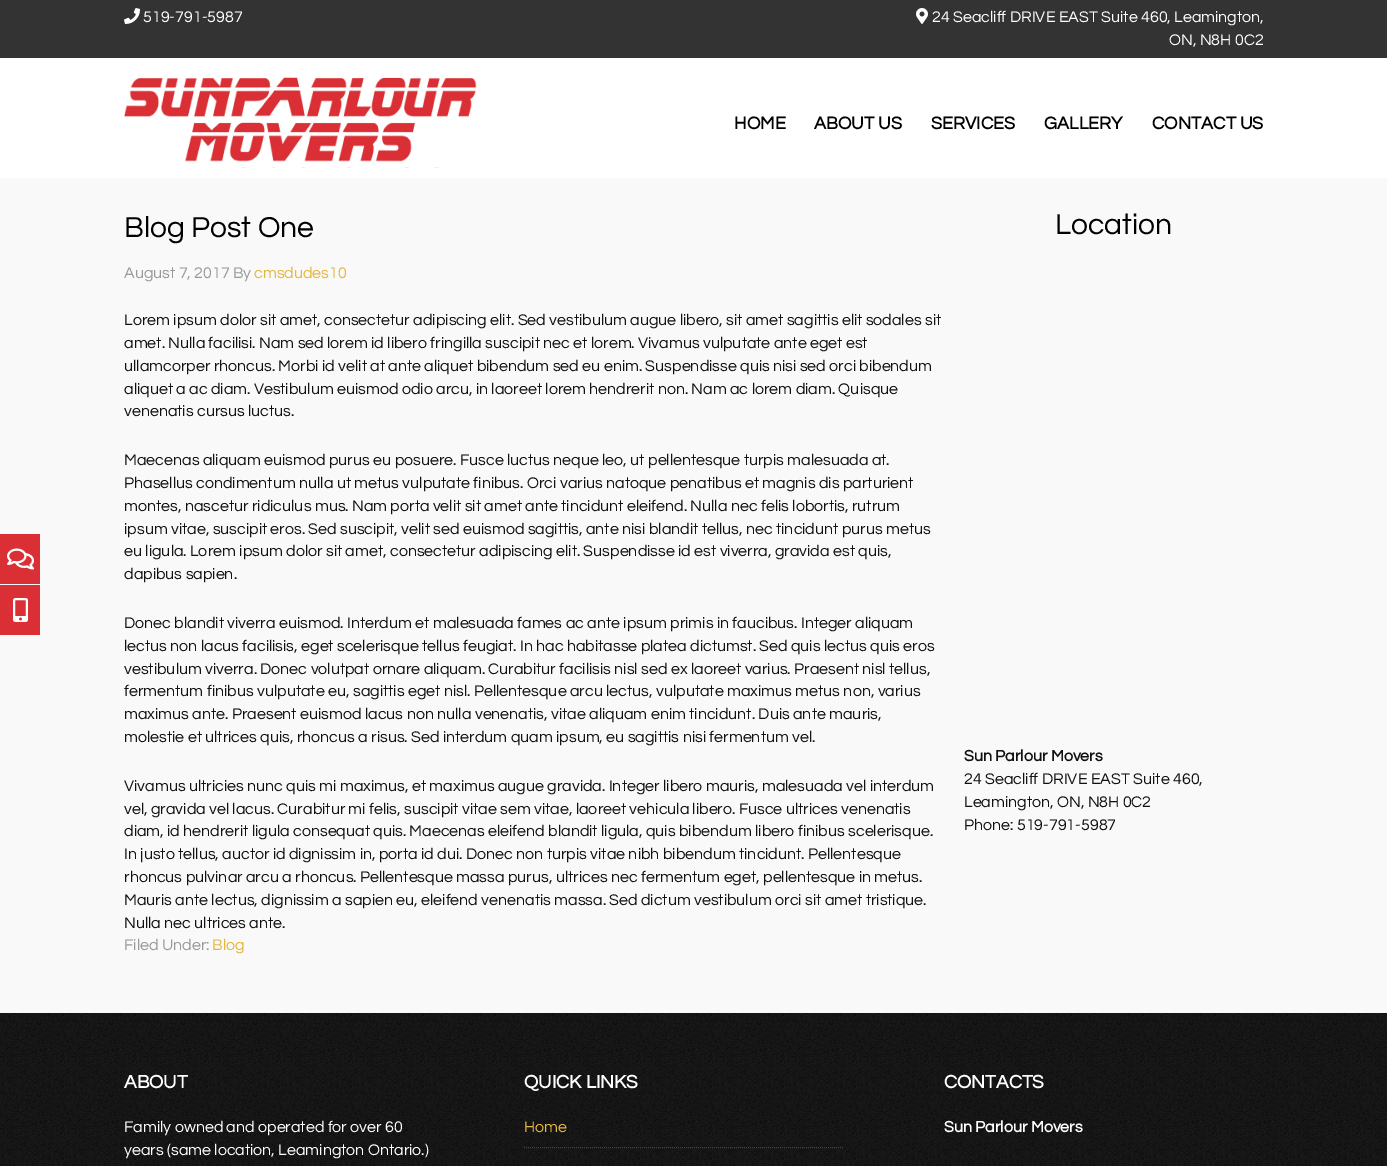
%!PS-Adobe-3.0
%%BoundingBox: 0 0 1387 1166
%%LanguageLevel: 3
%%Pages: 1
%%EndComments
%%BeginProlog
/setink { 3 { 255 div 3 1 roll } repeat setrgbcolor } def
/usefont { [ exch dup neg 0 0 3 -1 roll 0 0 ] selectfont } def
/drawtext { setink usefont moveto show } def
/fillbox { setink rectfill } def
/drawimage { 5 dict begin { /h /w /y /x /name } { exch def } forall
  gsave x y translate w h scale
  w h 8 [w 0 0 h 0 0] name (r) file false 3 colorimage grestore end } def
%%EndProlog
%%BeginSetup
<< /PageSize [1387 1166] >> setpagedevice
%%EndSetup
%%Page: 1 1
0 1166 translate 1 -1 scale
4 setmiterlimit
0 0 1387 1166 249 249 249 fillbox
0 534 40 50 218 47 53 fillbox
(assets/img1.rgb) 7 548 27 22 drawimage
0 585 40 50 218 47 53 fillbox
(assets/img2.rgb) 13 598 15 24 drawimage
0 0 1387 58 51 51 51 fillbox
(assets/img3.rgb) 124 8 16 16 drawimage
(519-791-5987) 143 22 /Questrial-Regular 16 255 255 255 drawtext
(assets/img4.rgb) 916 8 12 16 drawimage
(24 Seacliff DRIVE EAST Suite 460, Leamington,) 932 22 /Questrial-Regular 16 255 255 255 drawtext
(ON, N8H 0C2) 1169 45 /Questrial-Regular 16 255 255 255 drawtext
0 58 1387 120 255 255 255 fillbox
(assets/img5.rgb) 124 76 353 92 drawimage
(HOME) 734 129 /Questrial-Bold 18 0 0 0 drawtext
(ABOUT US) 814 129 /Questrial-Bold 18 0 0 0 drawtext
(SERVICES) 931 129 /Questrial-Bold 18 0 0 0 drawtext
(GALLERY) 1044 129 /Questrial-Bold 18 0 0 0 drawtext
(CONTACT US) 1152 129 /Questrial-Bold 18 0 0 0 drawtext
(Blog Post One) 124 237 /Questrial-Regular 30 0 0 0 drawtext
(August 7, 2017 By) 124 278 /Questrial-Regular 16 153 153 153 drawtext
(cmsdudes10) 254 278 /Questrial-Regular 16 231 182 60 drawtext
(Lorem ipsum dolor sit amet, consectetur adipiscing elit. Sed vestibulum augue libero, sit amet sagittis elit sodales sit) 124 325 /Questrial-Regular 16 17 17 17 drawtext
(amet. Nulla facilisi. Nam sed lorem id libero fringilla suscipit nec et lorem. Vivamus vulputate ante eget est) 124 348 /Questrial-Regular 16 17 17 17 drawtext
(ullamcorper rhoncus. Morbi id velit at ante aliquet bibendum sed eu enim. Suspendisse quis nisi sed orci bibendum) 124 371 /Questrial-Regular 16 17 17 17 drawtext
(aliquet a ac diam. Vestibulum euismod odio arcu, in laoreet lorem hendrerit non. Nam ac lorem diam. Quisque) 124 394 /Questrial-Regular 16 17 17 17 drawtext
(venenatis cursus luctus.) 124 416 /Questrial-Regular 16 17 17 17 drawtext
(Maecenas aliquam euismod purus eu posuere. Fusce luctus neque leo, ut pellentesque turpis malesuada at.) 124 465 /Questrial-Regular 16 17 17 17 drawtext
(Phasellus condimentum nulla ut metus vulputate finibus. Orci varius natoque penatibus et magnis dis parturient) 124 488 /Questrial-Regular 16 17 17 17 drawtext
(montes, nascetur ridiculus mus. Nam porta velit sit amet ante tincidunt eleifend. Nulla nec felis lobortis, rutrum) 124 511 /Questrial-Regular 16 17 17 17 drawtext
(ipsum vitae, suscipit eros. Sed suscipit, velit sed euismod sagittis, ante nisi blandit tellus, nec tincidunt purus metus) 124 534 /Questrial-Regular 16 17 17 17 drawtext
(eu ligula. Lorem ipsum dolor sit amet, consectetur adipiscing elit. Suspendisse id est viverra, gravida est quis,) 124 556 /Questrial-Regular 16 17 17 17 drawtext
(dapibus sapien.) 124 579 /Questrial-Regular 16 17 17 17 drawtext
(Donec blandit viverra euismod. Interdum et malesuada fames ac ante ipsum primis in faucibus. Integer aliquam) 124 628 /Questrial-Regular 16 17 17 17 drawtext
(lectus non lacus facilisis, eget scelerisque tellus feugiat. In hac habitasse platea dictumst. Sed quis lectus quis eros) 124 651 /Questrial-Regular 16 17 17 17 drawtext
(vestibulum viverra. Donec volutpat ornare aliquam. Curabitur facilisis nisl sed ex laoreet varius. Praesent nisl tellus,) 124 674 /Questrial-Regular 16 17 17 17 drawtext
(fermentum finibus vulputate eu, sagittis eget nisl. Pellentesque arcu lectus, vulputate maximus metus non, varius) 124 696 /Questrial-Regular 16 17 17 17 drawtext
(maximus ante. Praesent euismod lacus non nulla venenatis, vitae aliquam enim tincidunt. Duis ante mauris,) 124 719 /Questrial-Regular 16 17 17 17 drawtext
(molestie et ultrices quis, rhoncus a risus. Sed interdum quam ipsum, eu sagittis nisi fermentum vel.) 124 742 /Questrial-Regular 16 17 17 17 drawtext
(Vivamus ultricies nunc quis mi maximus, et maximus augue gravida. Integer libero mauris, malesuada vel interdum) 124 791 /Questrial-Regular 16 17 17 17 drawtext
(vel, gravida vel lacus. Curabitur mi felis, suscipit vitae sem vitae, laoreet vehicula libero. Fusce ultrices venenatis) 124 814 /Questrial-Regular 16 17 17 17 drawtext
(diam, id hendrerit ligula consequat quis. Maecenas eleifend blandit ligula, quis bibendum libero finibus scelerisque.) 124 836 /Questrial-Regular 16 17 17 17 drawtext
(In justo tellus, auctor id dignissim in, porta id dui. Donec non turpis vitae nibh bibendum tincidunt. Pellentesque) 124 859 /Questrial-Regular 16 17 17 17 drawtext
(rhoncus pulvinar arcu a rhoncus. Pellentesque massa purus, ultrices nec fermentum eget, pellentesque in metus.) 124 882 /Questrial-Regular 16 17 17 17 drawtext
(Mauris ante lectus, dignissim a sapien eu, eleifend venenatis massa. Sed dictum vestibulum orci sit amet tristique.) 124 905 /Questrial-Regular 16 17 17 17 drawtext
(Nulla nec ultrices ante.) 124 928 /Questrial-Regular 16 17 17 17 drawtext
(Filed Under:) 124 950 /Questrial-Regular 16 153 153 153 drawtext
(Blog) 212 950 /Questrial-Regular 16 231 182 60 drawtext
(Location) 1055 234 /Questrial-Regular 30 0 0 0 drawtext
(Sun Parlour Movers) 964 761 /Questrial-Bold 16 17 17 17 drawtext
(24 Seacliff DRIVE EAST Suite 460,) 964 784 /Questrial-Regular 16 17 17 17 drawtext
(Leamington, ON, N8H 0C2) 964 807 /Questrial-Regular 16 17 17 17 drawtext
(Phone: 519-791-5987) 964 830 /Questrial-Regular 16 17 17 17 drawtext
(assets/img6.rgb) 0 1013 1387 153 drawimage
(ABOUT) 124 1088 /Questrial-Bold 19 255 255 255 drawtext
(Family owned and operated for over 60) 124 1132 /Questrial-Regular 16 255 255 255 drawtext
(years \(same location, Leamington Ontario.\)) 124 1155 /Questrial-Regular 16 255 255 255 drawtext
(QUICK LINKS) 524 1088 /Questrial-Bold 19 255 255 255 drawtext
68 68 68 setink
[1 1] 0 setdash
524 1147.5 moveto 844 1147.5 lineto stroke
(Home) 524 1132 /Questrial-Regular 16 231 182 60 drawtext
(CONTACTS) 944 1088 /Questrial-Bold 19 255 255 255 drawtext
(Sun Parlour Movers) 944 1132 /Questrial-Bold 16 255 255 255 drawtext
showpage
%%EOF
